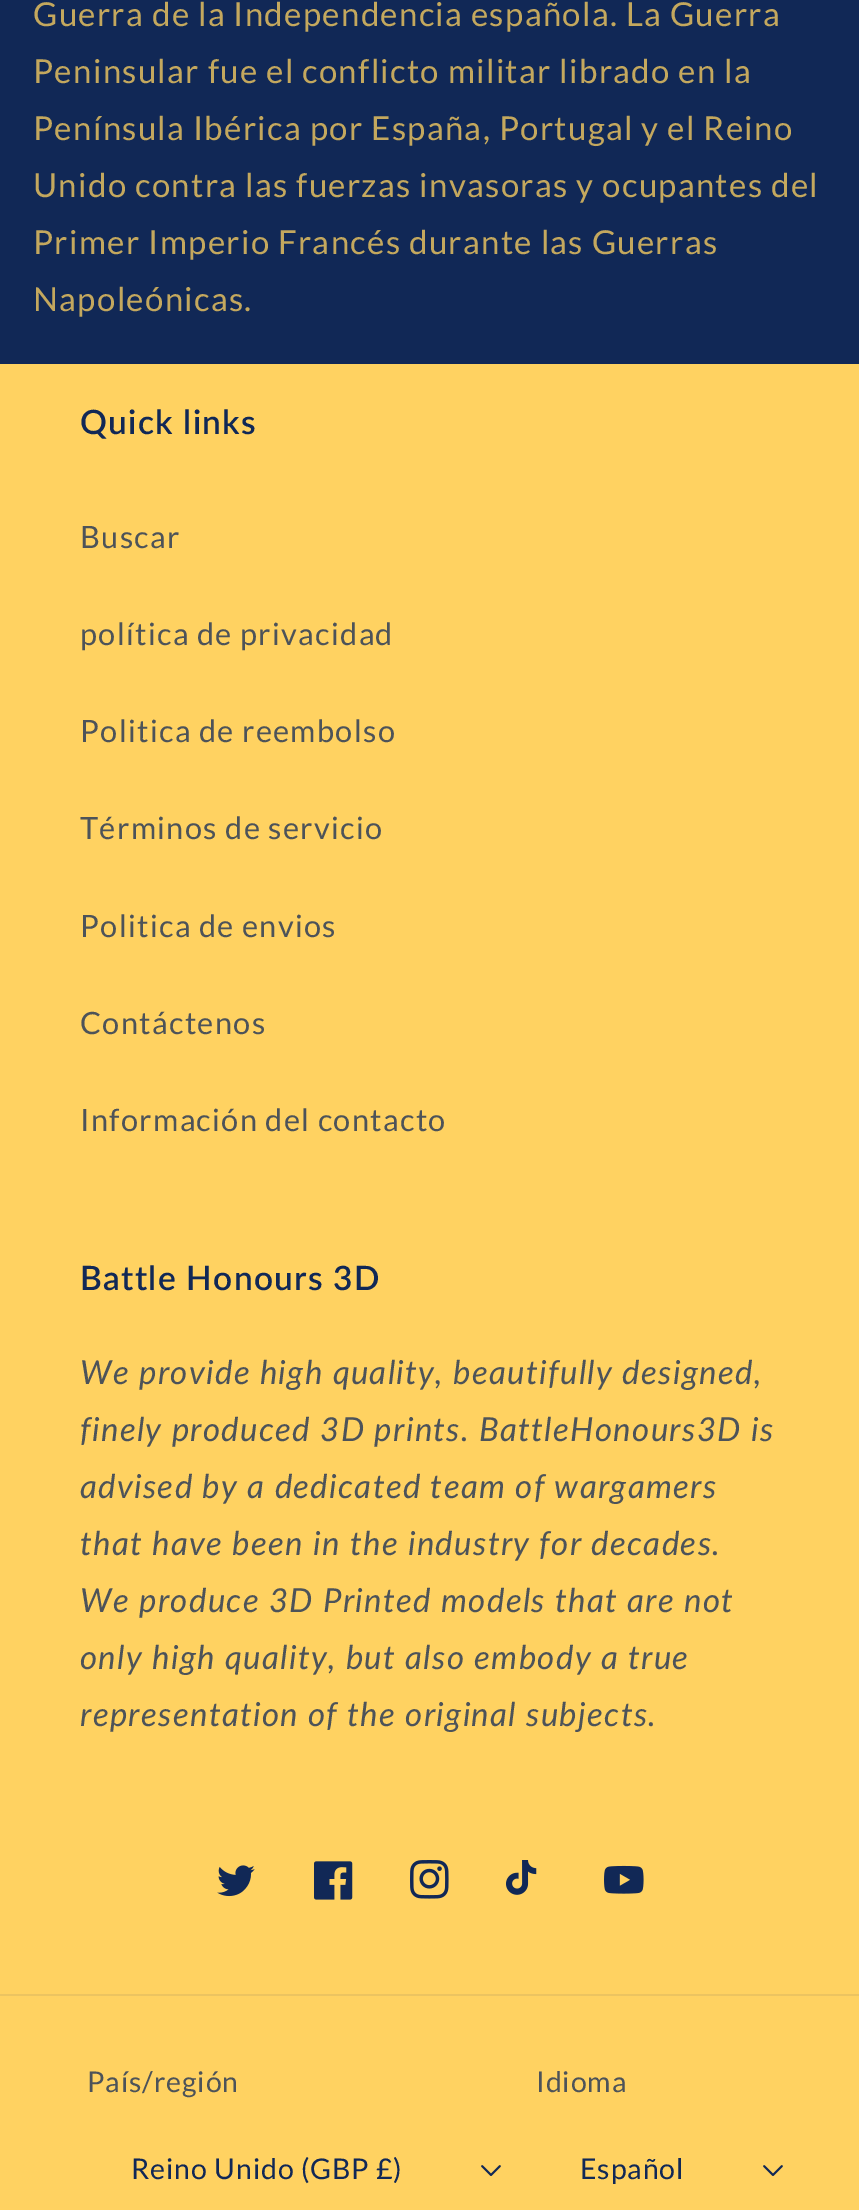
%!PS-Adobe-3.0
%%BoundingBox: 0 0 859 2210
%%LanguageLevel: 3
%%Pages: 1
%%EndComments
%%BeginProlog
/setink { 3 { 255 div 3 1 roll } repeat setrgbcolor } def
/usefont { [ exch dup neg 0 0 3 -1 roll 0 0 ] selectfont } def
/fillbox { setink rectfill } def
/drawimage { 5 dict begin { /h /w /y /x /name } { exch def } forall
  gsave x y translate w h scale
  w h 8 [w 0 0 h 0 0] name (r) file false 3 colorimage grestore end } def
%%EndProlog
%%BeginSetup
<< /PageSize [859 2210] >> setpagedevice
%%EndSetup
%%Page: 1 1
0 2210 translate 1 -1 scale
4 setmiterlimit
0 0 859 2210 17 40 86 fillbox
/Lato-Regular 33 usefont
196 168 94 setink
33 26 moveto 1.32 0 (Guerra de la Independencia española. La Guerra) ashow
33 83 moveto 1.32 0 (Peninsular fue el conflicto militar librado en la) ashow
33 140 moveto 1.32 0 (Península Ibérica por España, Portugal y el Reino) ashow
33 197 moveto 1.32 0 (Unido contra las fuerzas invasoras y ocupantes del) ashow
33 254 moveto 1.32 0 (Primer Imperio Francés durante las Guerras) ashow
33 311 moveto 1.32 0 (Napoleónicas.) ashow
0 364 859 1846 255 210 97 fillbox
/Lato-SemiBold 33.5 usefont
17 40 86 setink
80 434 moveto 1.25 0 (Quick links) ashow
/Lato-Regular 30.75 usefont
77 83 89 setink
80 548 moveto 1.32 0 (Buscar) ashow
80 645 moveto 1.32 0 (política de privacidad) ashow
80 742 moveto 1.32 0 (Politica de reembolso) ashow
80 839 moveto 1.32 0 (Términos de servicio) ashow
80 937 moveto 1.32 0 (Politica de envios) ashow
80 1034 moveto 1.32 0 (Contáctenos) ashow
80 1131 moveto 1.32 0 (Información del contacto) ashow
/Lato-SemiBold 33.5 usefont
17 40 86 setink
80 1290 moveto 1.25 0 (Battle Honours 3D) ashow
/Lato-Italic 33 usefont
77 83 89 setink
80 1384 moveto 1.32 0 (We provide high quality, beautifully designed,) ashow
80 1441 moveto 1.32 0 (finely produced 3D prints. BattleHonours3D is) ashow
80 1498 moveto 1.32 0 (advised by a dedicated team of wargamers) ashow
80 1555 moveto 1.32 0 (that have been in the industry for decades.) ashow
80 1612 moveto 1.32 0 (We produce 3D Printed models that are not) ashow
80 1669 moveto 1.32 0 (only high quality, but also embody a true) ashow
80 1726 moveto 1.32 0 (representation of the original subjects.) ashow
(assets/img1.rgb) 217 1865 38 32 drawimage
(assets/img2.rgb) 314 1861 39 39 drawimage
(assets/img3.rgb) 410 1860 39 39 drawimage
(assets/img4.rgb) 506 1860 31 35 drawimage
(assets/img5.rgb) 604 1865 40 29 drawimage
0 1994 859 2 236 196 96 fillbox
/Lato-Regular 28.5 usefont
77 83 89 setink
87 2092 moveto 0.9 0 (País/región) ashow
17 40 86 setink
131 2179 moveto 0.9 0 (Reino Unido \(GBP £\)) ashow
(assets/img6.rgb) 481 2165 20 11 drawimage
77 83 89 setink
536 2092 moveto 0.9 0 (Idioma) ashow
17 40 86 setink
580 2179 moveto 0.9 0 (Español) ashow
(assets/img6.rgb) 763 2165 20 11 drawimage
showpage
%%EOF
